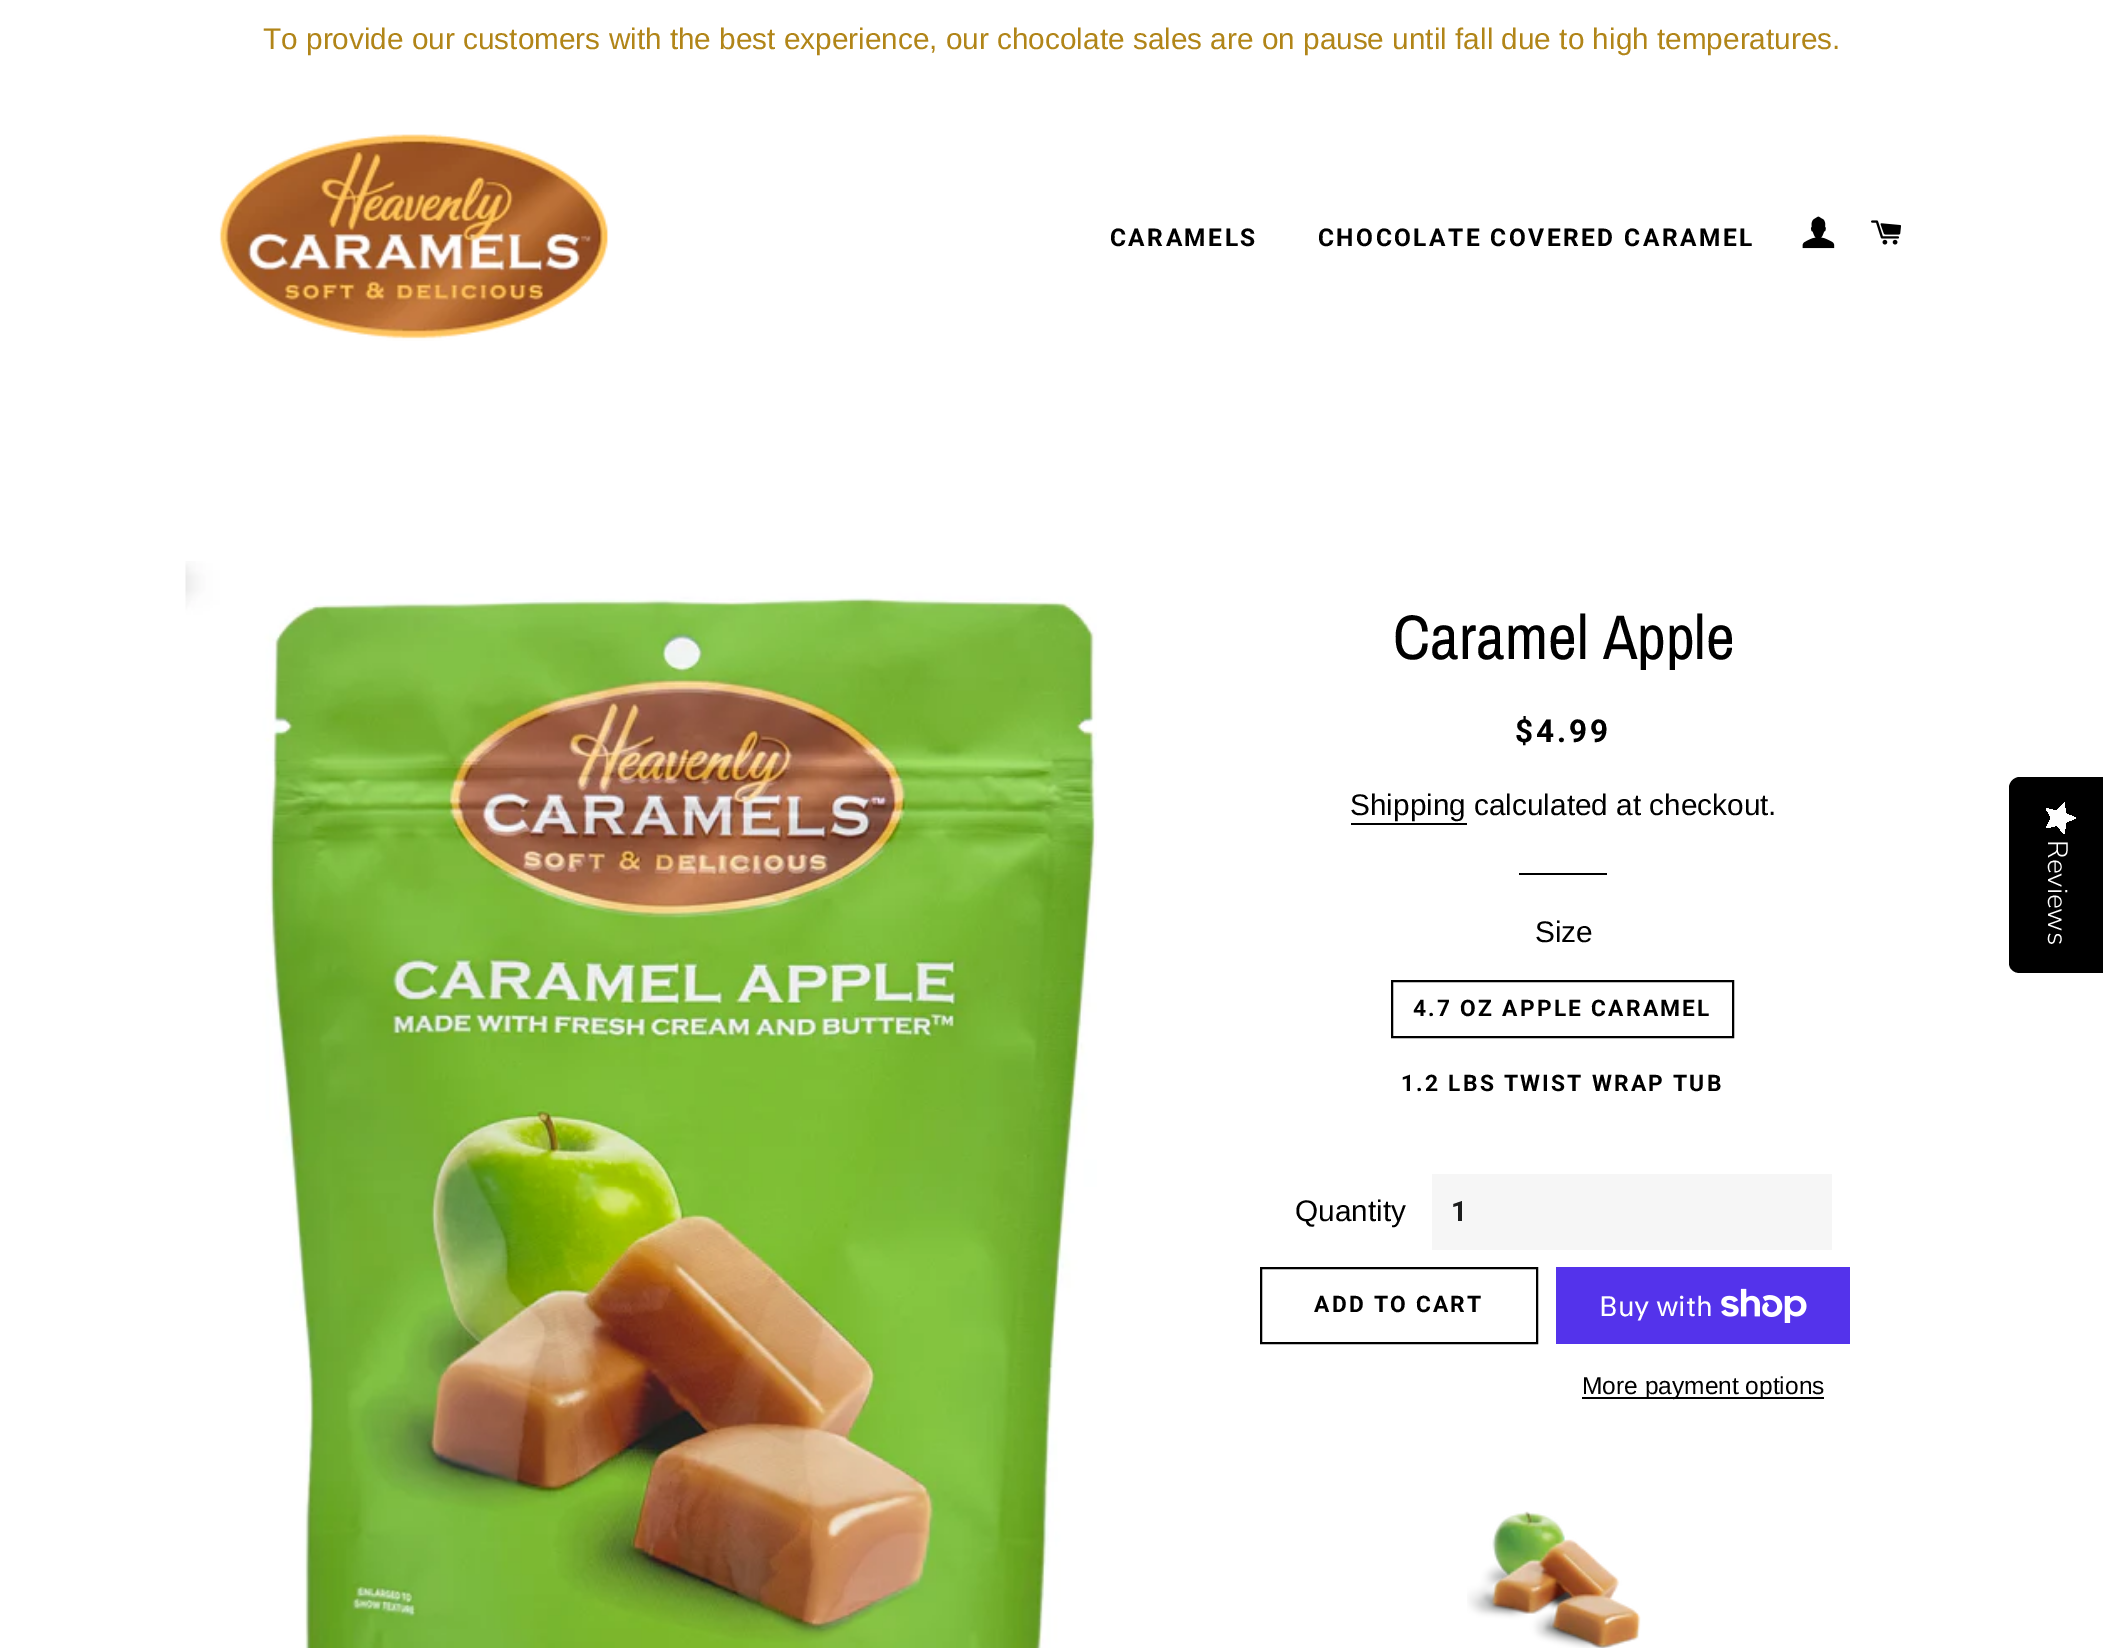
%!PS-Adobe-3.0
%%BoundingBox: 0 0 2103 1648
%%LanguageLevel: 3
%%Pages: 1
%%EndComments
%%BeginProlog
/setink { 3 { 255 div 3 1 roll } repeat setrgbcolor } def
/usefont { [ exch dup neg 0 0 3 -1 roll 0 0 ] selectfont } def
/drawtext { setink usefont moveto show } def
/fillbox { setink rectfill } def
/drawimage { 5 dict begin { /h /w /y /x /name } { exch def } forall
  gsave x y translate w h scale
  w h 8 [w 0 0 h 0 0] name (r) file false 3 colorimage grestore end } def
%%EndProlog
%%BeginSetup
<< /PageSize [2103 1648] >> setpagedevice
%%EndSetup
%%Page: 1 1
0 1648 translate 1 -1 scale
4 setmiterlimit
0 0 2103 1648 255 255 255 fillbox
(To provide our customers with the best experience, our chocolate sales are on pause until fall due to high temperatures.) 263 49 /LiberationSans-Regular 29.75 177 133 24 drawtext
(assets/img1.rgb) 219 134 390 207 drawimage
/Roboto-Bold 24.5 usefont
0 0 0 setink
1110 246 moveto 2.45 0 (CARAMELS) ashow
1318 246 moveto 2.45 0 (CHOCOLATE COVERED CARAMEL) ashow
(assets/img2.rgb) 1802 216 33 33 drawimage
(assets/img3.rgb) 1871 220 30 25 drawimage
(assets/img4.rgb) 185 561 912 1087 drawimage
(Caramel Apple) 1393 659 /ArchivoNarrow-Regular 63 0 0 0 drawtext
/Roboto-Bold 31.5 usefont
1515 742 moveto 3 0 ($4.99) ashow
(Shipping calculated at checkout.) 1350 815 /LiberationSans-Regular 29.75 0 0 0 drawtext
1351 823 116 2 0 0 0 fillbox
1519 873 88 2 0 0 0 fillbox
(Size) 1535 942 /LiberationSans-Regular 29.75 0 0 0 drawtext
2 setlinewidth
1392 981 341 56 rectstroke
/Roboto-Bold 22.75 usefont
1413 1016 moveto 2.25 0 (4.7 OZ APPLE CARAMEL) ashow
1401 1091 moveto 2.25 0 (1.2 LBS TWIST WRAP TUB) ashow
(Quantity) 1295 1221 /LiberationSans-Regular 29.75 0 0 0 drawtext
1432 1174 400 76 246 246 246 fillbox
/Roboto-Bold 28 usefont
28 29 29 setink
1451 1221 moveto 3 0 (1) ashow
0 0 0 setink
1261 1268 276 75 rectstroke
/Roboto-Bold 22.75 usefont
1314 1312 moveto 2.25 0 (ADD TO CART) ashow
1556 1267 294 77 84 51 235 fillbox
(Buy with) 1599 1316 /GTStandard-Regular 28 255 255 255 drawtext
(assets/img5.rgb) 1721 1288 86 35 drawimage
1582 1397 242 2 0 0 0 fillbox
(More payment options) 1582 1394 /LiberationSans-Regular 24.5 0 0 0 drawtext
(assets/img6.rgb) 1467 1511 174 137 drawimage
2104 777 moveto 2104 973 lineto 2020 973 lineto 2014 973 2009 969 2009 963 curveto 2009 788 lineto 2009 782 2014 777 2020 777 curveto closepath fill
gsave 2051.5 818 moveto 2046 828 lineto 2057 825.5 lineto 2064.5 834 lineto 2065.5 822.5 lineto 2075.5 818 lineto 2065.5 813.5 lineto 2064.5 802.5 lineto 2057 811 lineto 2046 808.5 lineto closepath clip newpath
<< /ShadingType 2 /ColorSpace /DeviceRGB /Coords [2076 802 2076 834] /Extend [true true] /Function << /FunctionType 2 /Domain [0 1] /C0 [0.996 0.996 0.996] /C1 [0.996 0.996 0.996] /N 1 >> >> shfill grestore
/NunitoSans-Light 28 usefont
255 255 255 setink
gsave 2048 840 translate 90 rotate 0 0 moveto (Reviews) show grestore
showpage
%%EOF
